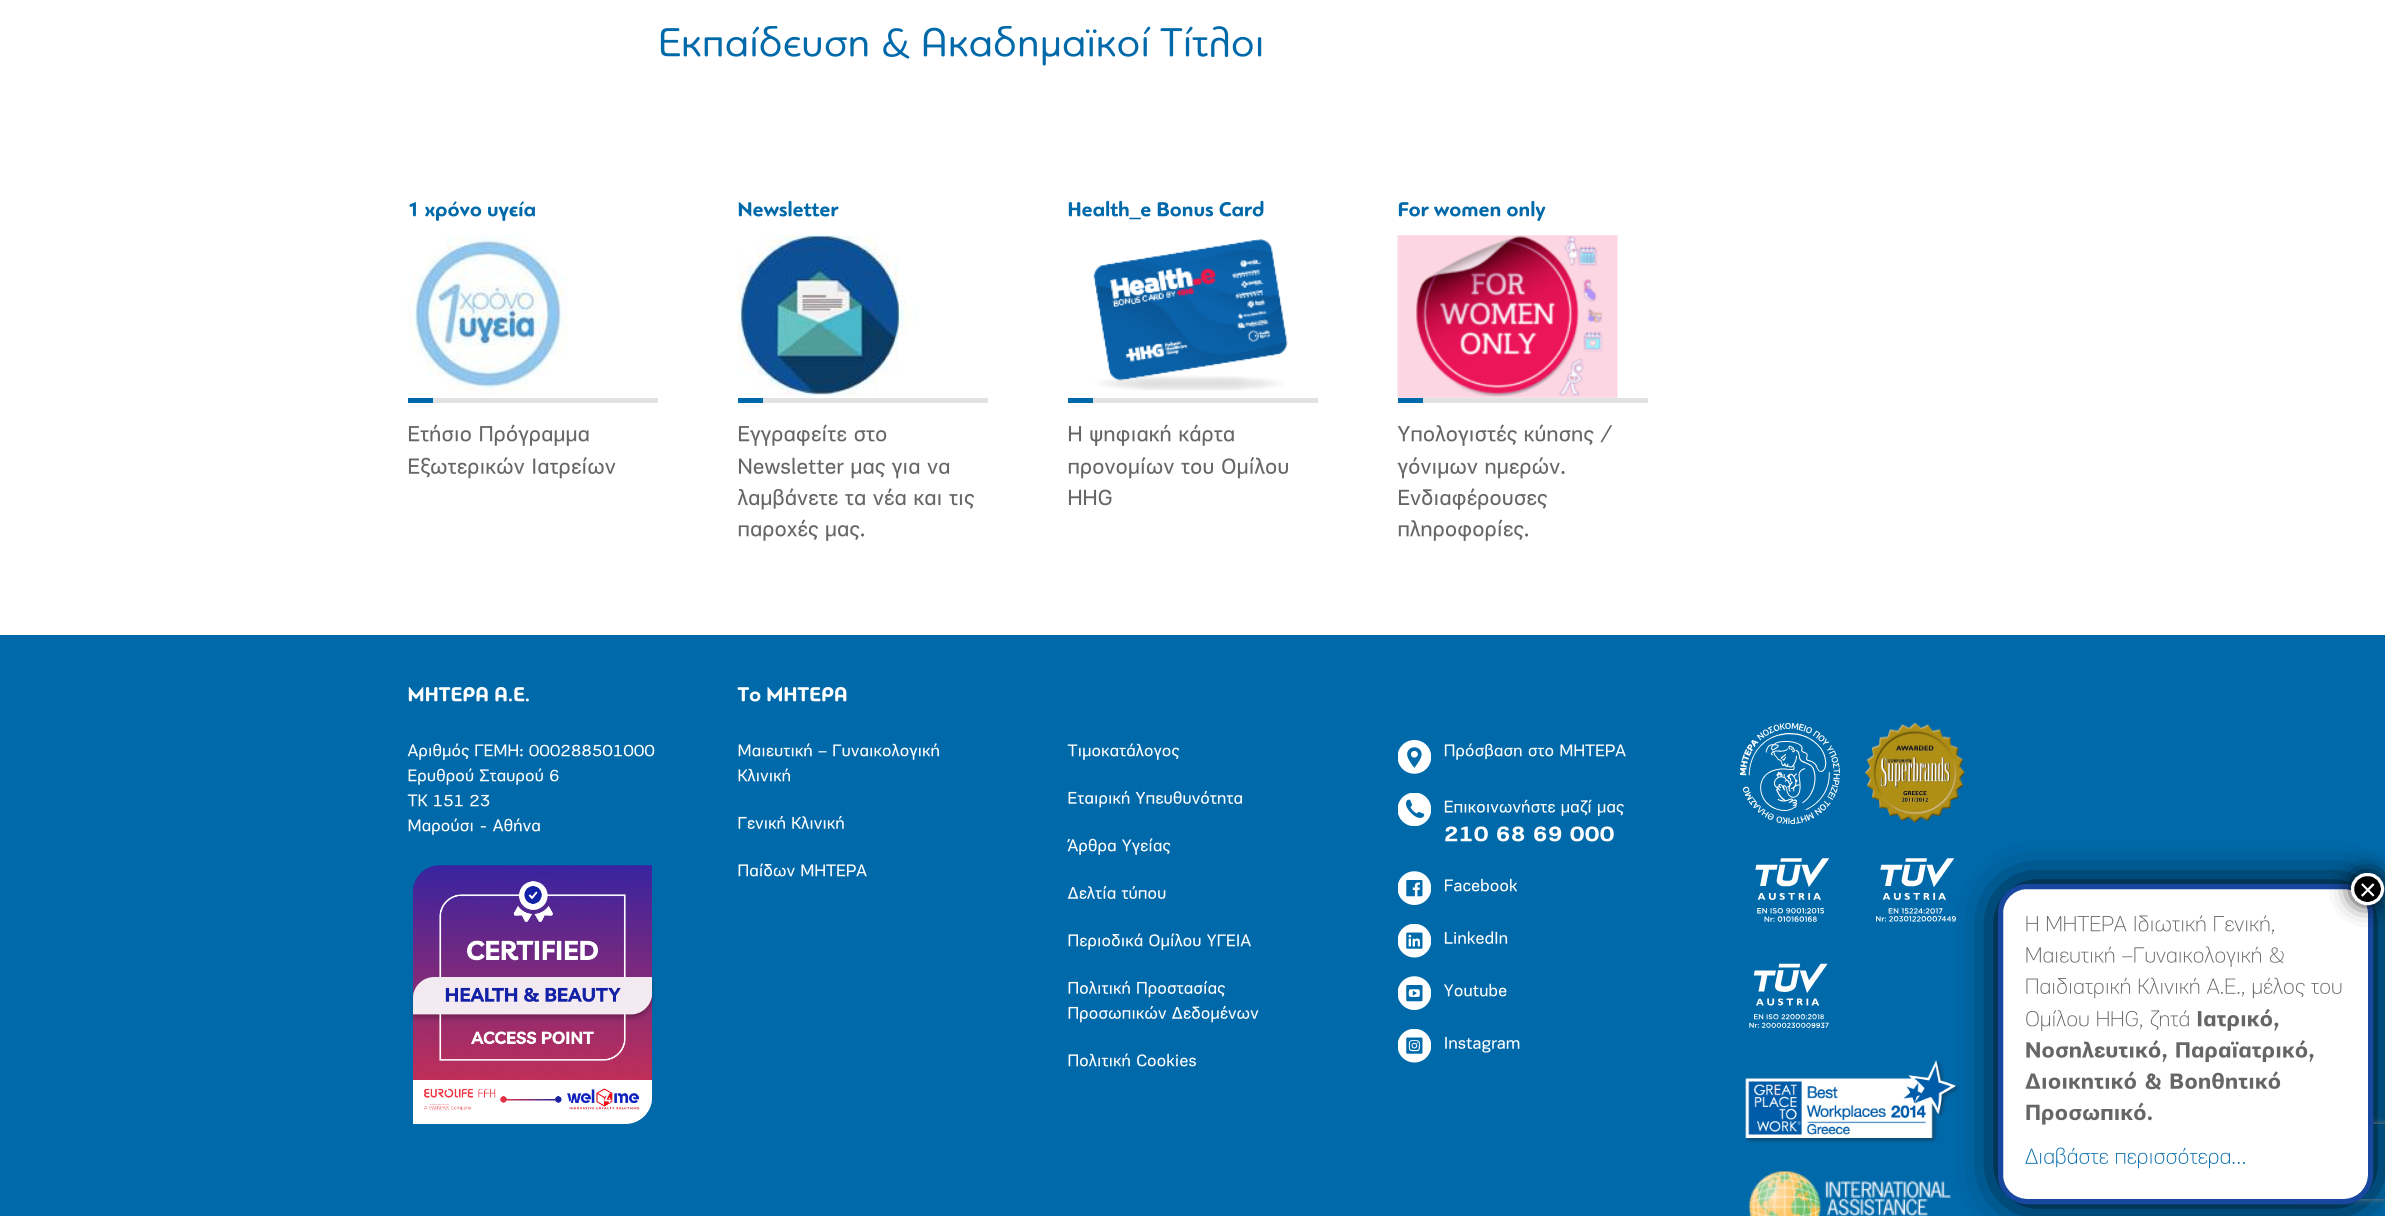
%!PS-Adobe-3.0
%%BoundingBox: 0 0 2385 1216
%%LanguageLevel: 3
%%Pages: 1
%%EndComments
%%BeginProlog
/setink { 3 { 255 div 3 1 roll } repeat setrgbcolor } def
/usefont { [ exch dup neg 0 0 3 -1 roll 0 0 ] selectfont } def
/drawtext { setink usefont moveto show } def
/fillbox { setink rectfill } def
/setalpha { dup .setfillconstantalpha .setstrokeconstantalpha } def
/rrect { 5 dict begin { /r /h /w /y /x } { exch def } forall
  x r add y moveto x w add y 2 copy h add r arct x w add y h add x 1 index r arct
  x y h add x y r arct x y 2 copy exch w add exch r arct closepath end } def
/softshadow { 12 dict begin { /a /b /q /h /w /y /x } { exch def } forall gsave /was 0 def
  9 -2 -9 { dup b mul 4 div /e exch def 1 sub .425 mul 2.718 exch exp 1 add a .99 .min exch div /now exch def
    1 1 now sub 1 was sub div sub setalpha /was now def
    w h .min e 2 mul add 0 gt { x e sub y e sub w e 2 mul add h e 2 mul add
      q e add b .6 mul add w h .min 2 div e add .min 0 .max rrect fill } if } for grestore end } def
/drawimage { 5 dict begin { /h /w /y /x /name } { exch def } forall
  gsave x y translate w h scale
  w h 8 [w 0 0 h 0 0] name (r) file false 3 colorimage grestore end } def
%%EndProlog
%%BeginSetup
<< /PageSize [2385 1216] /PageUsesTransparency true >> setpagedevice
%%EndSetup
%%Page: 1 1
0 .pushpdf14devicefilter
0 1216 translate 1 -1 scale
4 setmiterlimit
0 0 2385 1216 255 255 255 fillbox
(assets/img1.rgb) 660 26 602 40 drawimage
(assets/img2.rgb) 409 201 126 20 drawimage
433 398 225 5 226 226 226 fillbox
(assets/img3.rgb) 407 235 161 160 drawimage
408 398 25 5 0 105 170 fillbox
(assets/img4.rgb) 408 424 181 22 drawimage
(assets/img5.rgb) 408 457 208 22 drawimage
(assets/img6.rgb) 738 200 101 17 drawimage
763 398 225 5 226 226 226 fillbox
(assets/img7.rgb) 737 235 180 161 drawimage
738 398 25 5 0 105 170 fillbox
(assets/img8.rgb) 738 424 149 22 drawimage
(assets/img9.rgb) 738 457 212 22 drawimage
(assets/img10.rgb) 737 488 237 22 drawimage
(assets/img11.rgb) 738 519 126 22 drawimage
(assets/img12.rgb) 1068 200 196 20 drawimage
1093 398 225 5 226 226 226 fillbox
(assets/img13.rgb) 1093 238 195 153 drawimage
1068 398 25 5 0 105 170 fillbox
(assets/img14.rgb) 1068 424 166 22 drawimage
(assets/img15.rgb) 1068 457 220 22 drawimage
(assets/img16.rgb) 1068 489 44 17 drawimage
(assets/img17.rgb) 1398 200 148 21 drawimage
1423 398 225 5 226 226 226 fillbox
(assets/img18.rgb) 1397 235 221 163 drawimage
1398 398 25 5 0 105 170 fillbox
(assets/img19.rgb) 1397 424 216 22 drawimage
(assets/img20.rgb) 1397 457 168 22 drawimage
(assets/img21.rgb) 1398 488 149 22 drawimage
(assets/img22.rgb) 1398 519 130 22 drawimage
0 635 2385 581 0 105 170 fillbox
(assets/img23.rgb) 408 687 121 15 drawimage
(assets/img24.rgb) 407 743 248 17 drawimage
(assets/img25.rgb) 408 768 151 17 drawimage
(assets/img26.rgb) 407 794 83 13 drawimage
(assets/img27.rgb) 408 818 132 17 drawimage
(assets/img28.rgb) 410 865 245 259 drawimage
(assets/img29.rgb) 737 686 110 16 drawimage
(assets/img30.rgb) 738 743 201 17 drawimage
(assets/img31.rgb) 738 768 52 14 drawimage
(assets/img32.rgb) 738 815 106 14 drawimage
(assets/img33.rgb) 738 863 129 14 drawimage
(assets/img34.rgb) 1067 743 113 17 drawimage
(assets/img35.rgb) 1068 790 174 18 drawimage
(assets/img36.rgb) 1067 838 104 17 drawimage
(assets/img37.rgb) 1067 885 99 14 drawimage
(assets/img38.rgb) 1068 933 183 17 drawimage
(assets/img39.rgb) 1068 980 157 18 drawimage
(assets/img40.rgb) 1068 1005 191 18 drawimage
(assets/img41.rgb) 1068 1053 128 14 drawimage
(assets/img42.rgb) 1398 740 33 34 drawimage
(assets/img43.rgb) 1444 743 182 17 drawimage
(assets/img44.rgb) 1398 793 33 33 drawimage
(assets/img45.rgb) 1444 799 180 18 drawimage
(assets/img46.rgb) 1445 826 169 16 drawimage
(assets/img47.rgb) 1398 871 33 34 drawimage
(assets/img48.rgb) 1444 878 74 14 drawimage
(assets/img49.rgb) 1398 924 33 34 drawimage
(assets/img50.rgb) 1444 931 64 13 drawimage
(assets/img51.rgb) 1398 976 33 34 drawimage
(assets/img52.rgb) 1444 983 63 14 drawimage
(assets/img53.rgb) 1398 1029 33 34 drawimage
(assets/img54.rgb) 1445 1036 75 17 drawimage
(assets/img55.rgb) 1740 723 100 101 drawimage
(assets/img56.rgb) 1865 722 100 101 drawimage
(assets/img57.rgb) 1755 858 75 64 drawimage
(assets/img58.rgb) 1876 858 80 64 drawimage
(assets/img59.rgb) 1749 963 80 65 drawimage
(assets/img60.rgb) 1745 1060 215 83 drawimage
(assets/img61.rgb) 1748 1171 204 45 drawimage
2 2 2 setink
1998 884 375 320 29 19 1 softshadow
gsave
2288 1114 moveto 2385 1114 lineto 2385 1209 lineto 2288 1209 lineto closepath 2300.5 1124 moveto 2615.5 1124 lineto 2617 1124 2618 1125 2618 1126.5 curveto 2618 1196.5 lineto 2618 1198 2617 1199 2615.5 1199 curveto 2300.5 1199 lineto 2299 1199 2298 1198 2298 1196.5 curveto 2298 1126.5 lineto 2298 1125 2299 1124 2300.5 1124 curveto closepath eoclip newpath
128 128 128 setink
2298 1124 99 75 2.5 3 1 softshadow
grestore
255 255 255 setink
2000.5 886.5 370 315 26.5 rrect gsave fill grestore
23 71 158 setink
5 setlinewidth
stroke
2 2 2 setink
2350 871 35 35 17.5 9.5 0.75 softshadow
0 0 0 setink
2352.5 874.5 30 29 14.5 rrect gsave fill grestore
255 255 255 setink
3 setlinewidth
stroke
(×) 2359 900 /LiberationSans-Regular 30 255 255 255 drawtext
(assets/img62.rgb) 2026 915 248 20 drawimage
(assets/img63.rgb) 2026 946 258 21 drawimage
(assets/img64.rgb) 2026 977 316 22 drawimage
(assets/img65.rgb) 2026 1010 163 21 drawimage
(assets/img66.rgb) 2197 1008 82 23 drawimage
(assets/img67.rgb) 2026 1040 288 23 drawimage
(assets/img68.rgb) 2025 1071 256 19 drawimage
(assets/img69.rgb) 2026 1102 126 23 drawimage
(assets/img70.rgb) 2025 1147 220 22 drawimage
.poppdf14devicefilter showpage
%%EOF
